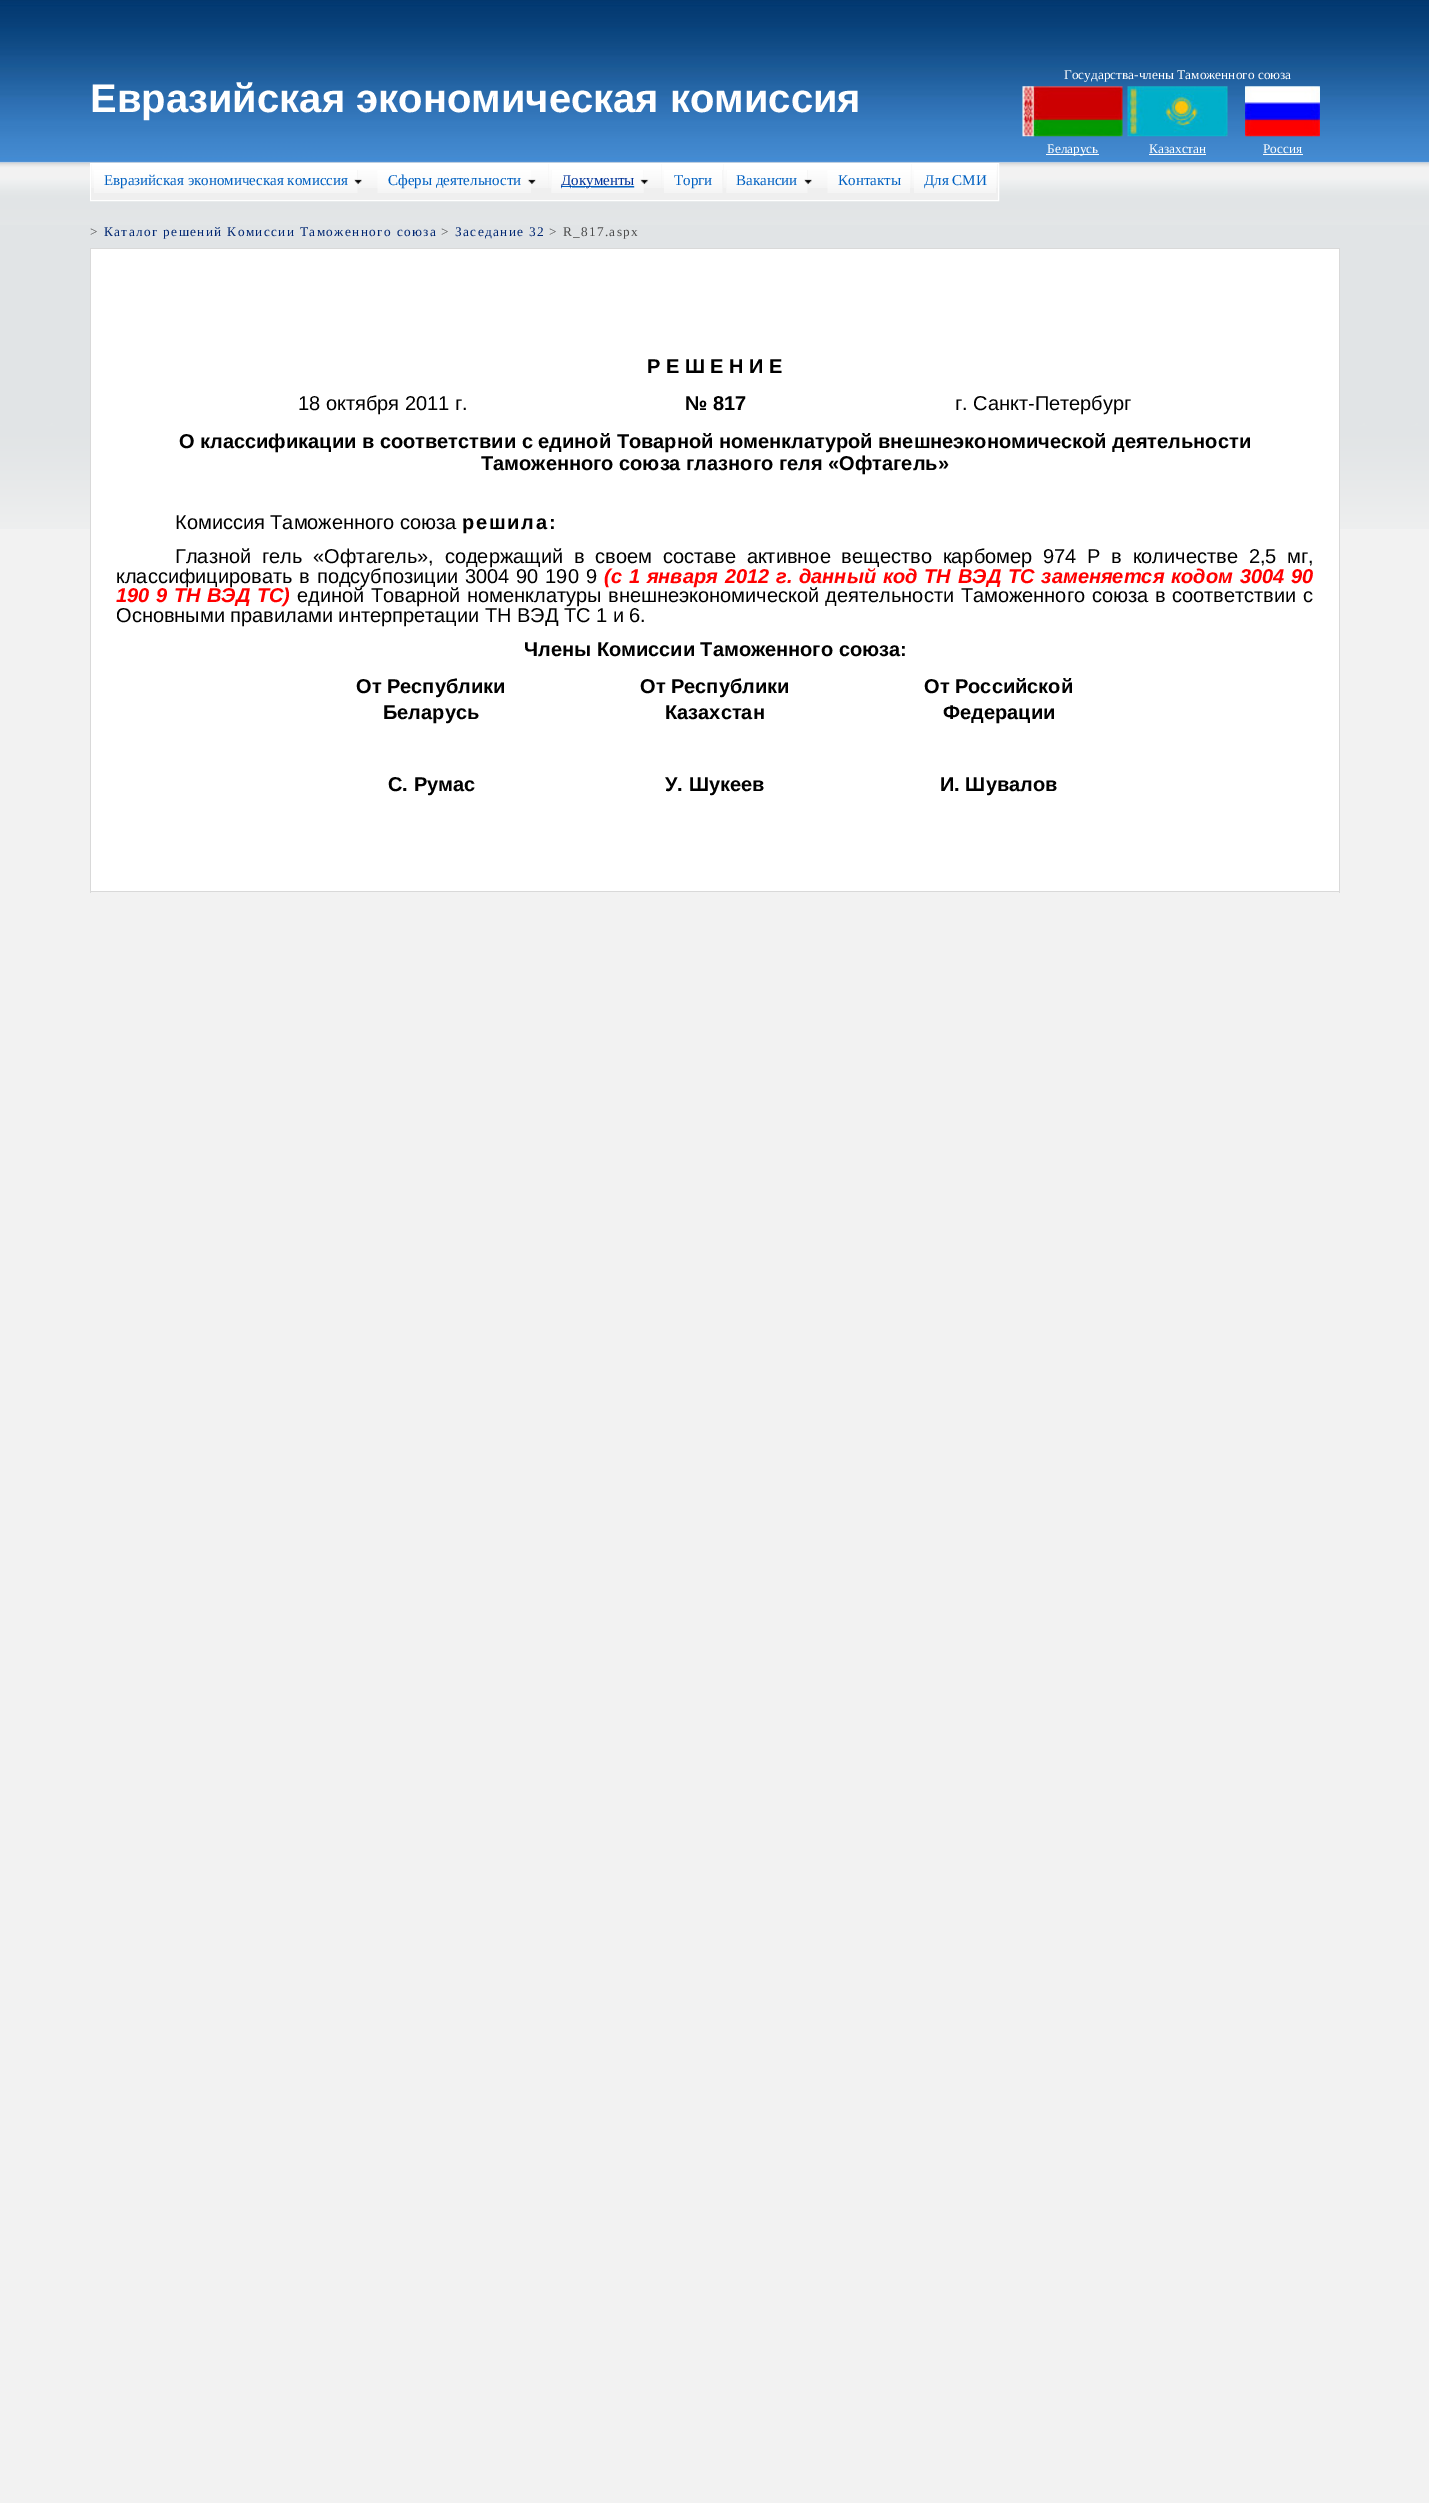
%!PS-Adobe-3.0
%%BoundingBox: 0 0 1429 2503
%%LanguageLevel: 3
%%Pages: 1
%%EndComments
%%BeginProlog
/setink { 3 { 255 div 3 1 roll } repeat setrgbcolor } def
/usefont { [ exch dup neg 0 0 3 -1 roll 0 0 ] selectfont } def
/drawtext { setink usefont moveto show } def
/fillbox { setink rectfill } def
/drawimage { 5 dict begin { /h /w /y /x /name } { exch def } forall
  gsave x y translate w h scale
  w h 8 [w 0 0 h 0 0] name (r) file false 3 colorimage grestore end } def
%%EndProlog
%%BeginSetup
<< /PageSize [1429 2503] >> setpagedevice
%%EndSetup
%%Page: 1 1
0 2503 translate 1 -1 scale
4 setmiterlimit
0 0 1429 2503 255 255 255 fillbox
(assets/img1.rgb) 0 0 1429 163 drawimage
(Евразийская экономическая комиссия) 90 112 /LiberationSans-Bold 40 255 255 255 drawtext
(Государства-члены Таможенного союза) 1064 79 /LiberationSerif-Regular 13.3 255 255 255 drawtext
(assets/img2.rgb) 1022 86 101 51 drawimage
(assets/img3.rgb) 1127 86 101 51 drawimage
(assets/img4.rgb) 1245 86 75 51 drawimage
1046 154 53 1 255 255 255 fillbox
(Беларусь) 1047 153 /LiberationSerif-Regular 13.3 255 255 255 drawtext
(Казахстан) 1149 153 /LiberationSerif-Regular 13.3 255 255 255 drawtext
1149 154 57 1 255 255 255 fillbox
(Россия) 1263 153 /LiberationSerif-Regular 13.3 255 255 255 drawtext
1263 154 40 1 255 255 255 fillbox
(assets/img5.rgb) 0 162 1429 63 drawimage
90.5 163.5 908 37 rectstroke
91 164 458 36 239 239 239 fillbox
(assets/img6.rgb) 91 164 284 24 drawimage
94 170 264 18 239 239 239 fillbox
(assets/img7.rgb) 94 170 264 23 drawimage
(Евразийская экономическая комиссия) 104 185 /LiberationSerif-Regular 15 1 97 194 drawtext
(assets/img8.rgb) 354 179 8 6 drawimage
(assets/img9.rgb) 375 164 174 24 drawimage
(assets/img10.rgb) 377 170 154 23 drawimage
(Сферы деятельности) 388 185 /LiberationSerif-Regular 15 1 97 194 drawtext
(assets/img11.rgb) 527 179 9 6 drawimage
549 188 112 12 239 239 239 fillbox
(assets/img12.rgb) 549 164 112 24 drawimage
551 170 93 18 239 239 239 fillbox
(assets/img13.rgb) 551 170 93 23 drawimage
561 186 73 1 1 97 194 fillbox
(Документы) 561 185 /LiberationSerif-Regular 15 0 51 153 drawtext
(assets/img14.rgb) 640 179 9 6 drawimage
661 164 63 36 239 239 239 fillbox
(assets/img15.rgb) 661 164 63 24 drawimage
664 170 59 18 239 239 239 fillbox
(assets/img16.rgb) 664 170 59 23 drawimage
(Торги) 674 185 /LiberationSerif-Regular 15 1 97 194 drawtext
724 188 187 12 239 239 239 fillbox
(assets/img17.rgb) 724 164 101 24 drawimage
726 170 82 18 239 239 239 fillbox
(assets/img18.rgb) 726 170 82 23 drawimage
(Вакансии) 736 185 /LiberationSerif-Regular 15 1 97 194 drawtext
(assets/img8.rgb) 804 179 8 6 drawimage
(assets/img19.rgb) 825 164 86 24 drawimage
(assets/img20.rgb) 827 170 83 23 drawimage
(Контакты) 838 185 /LiberationSerif-Regular 15 1 97 194 drawtext
911 164 87 36 239 239 239 fillbox
(assets/img21.rgb) 911 164 87 24 drawimage
(assets/img22.rgb) 914 170 82 23 drawimage
(Для СМИ) 924 185 /LiberationSerif-Regular 15 1 97 194 drawtext
0 529 1429 1974 242 242 242 fillbox
(assets/img23.rgb) 0 225 1429 304 drawimage
/LiberationSerif-Regular 13.3 usefont
76 76 76 setink
90 236 moveto 1.35 0 (>) ashow
0 38 114 setink
104 236 moveto 1.35 0 (Каталог решений Комиссии Таможенного союза) ashow
76 76 76 setink
441 236 moveto 1.35 0 (>) ashow
0 38 114 setink
455 236 moveto 1.35 0 (Заседание 32) ashow
76 76 76 setink
549 236 moveto 1.35 0 (> R_817.aspx) ashow
91 249 1248 642 255 255 255 fillbox
90 248 1250 1 217 217 217 fillbox
1339 248 1 645 217 217 217 fillbox
90 248 1 46 217 217 217 fillbox
90 891 1250 1 217 217 217 fillbox
90 293 1 600 217 217 217 fillbox
(Р Е Ш Е Н И Е) 647 373 /LiberationSans-Bold 20 0 0 0 drawtext
(18 октября 2011 г.) 298 410 /LiberationSans-Regular 20 0 0 0 drawtext
(№ 817) 685 410 /LiberationSans-Bold 20 0 0 0 drawtext
(г. Санкт-Петербург) 955 410 /LiberationSans-Regular 20 0 0 0 drawtext
(О классификации в соответствии с единой Товарной номенклатурой внешнеэкономической деятельности) 179 448 /LiberationSans-Bold 20 0 0 0 drawtext
(Таможенного союза глазного геля «Офтагель») 481 470 /LiberationSans-Bold 20 0 0 0 drawtext
(Комиссия Таможенного союза) 175 529 /LiberationSans-Regular 20 0 0 0 drawtext
/LiberationSans-Bold 20 usefont
462 529 moveto 1.75 0 (решила:) ashow
/LiberationSans-Regular 20 usefont
175 563 moveto 5.25 0 32 (Глазной гель «Офтагель», содержащий в своем составе активное вещество карбомер 974 Р в количестве 2,5 мг,) widthshow
116 583 moveto 1.3 0 32 (классифицировать в подсубпозиции 3004 90 190 9) widthshow
/LiberationSans-BoldItalic 20 usefont
255 0 0 setink
604 583 moveto 1.3 0 32 (\(с 1 января 2012 г. данный код ТН ВЭД ТС заменяется кодом 3004 90) widthshow
116 602 moveto 1 0 32 (190 9 ТН ВЭД ТС\)) widthshow
/LiberationSans-Regular 20 usefont
0 0 0 setink
297 602 moveto 1.1 0 32 (единой Товарной номенклатуры внешнеэкономической деятельности Таможенного союза в соответствии с) widthshow
(Основными правилами интерпретации ТН ВЭД ТС 1 и 6.) 116 622 /LiberationSans-Regular 20 0 0 0 drawtext
(Члены Комиссии Таможенного союза:) 524 656 /LiberationSans-Bold 20 0 0 0 drawtext
(От Республики) 356 693 /LiberationSans-Bold 20 0 0 0 drawtext
(Беларусь) 383 719 /LiberationSans-Bold 20 0 0 0 drawtext
(От Республики) 640 693 /LiberationSans-Bold 20 0 0 0 drawtext
(Казахстан) 665 719 /LiberationSans-Bold 20 0 0 0 drawtext
(От Российской) 924 693 /LiberationSans-Bold 20 0 0 0 drawtext
(Федерации) 943 719 /LiberationSans-Bold 20 0 0 0 drawtext
(С. Румас) 388 791 /LiberationSans-Bold 20 0 0 0 drawtext
(У. Шукеев) 665 791 /LiberationSans-Bold 20 0 0 0 drawtext
(И. Шувалов) 940 791 /LiberationSans-Bold 20 0 0 0 drawtext
showpage
%%EOF
